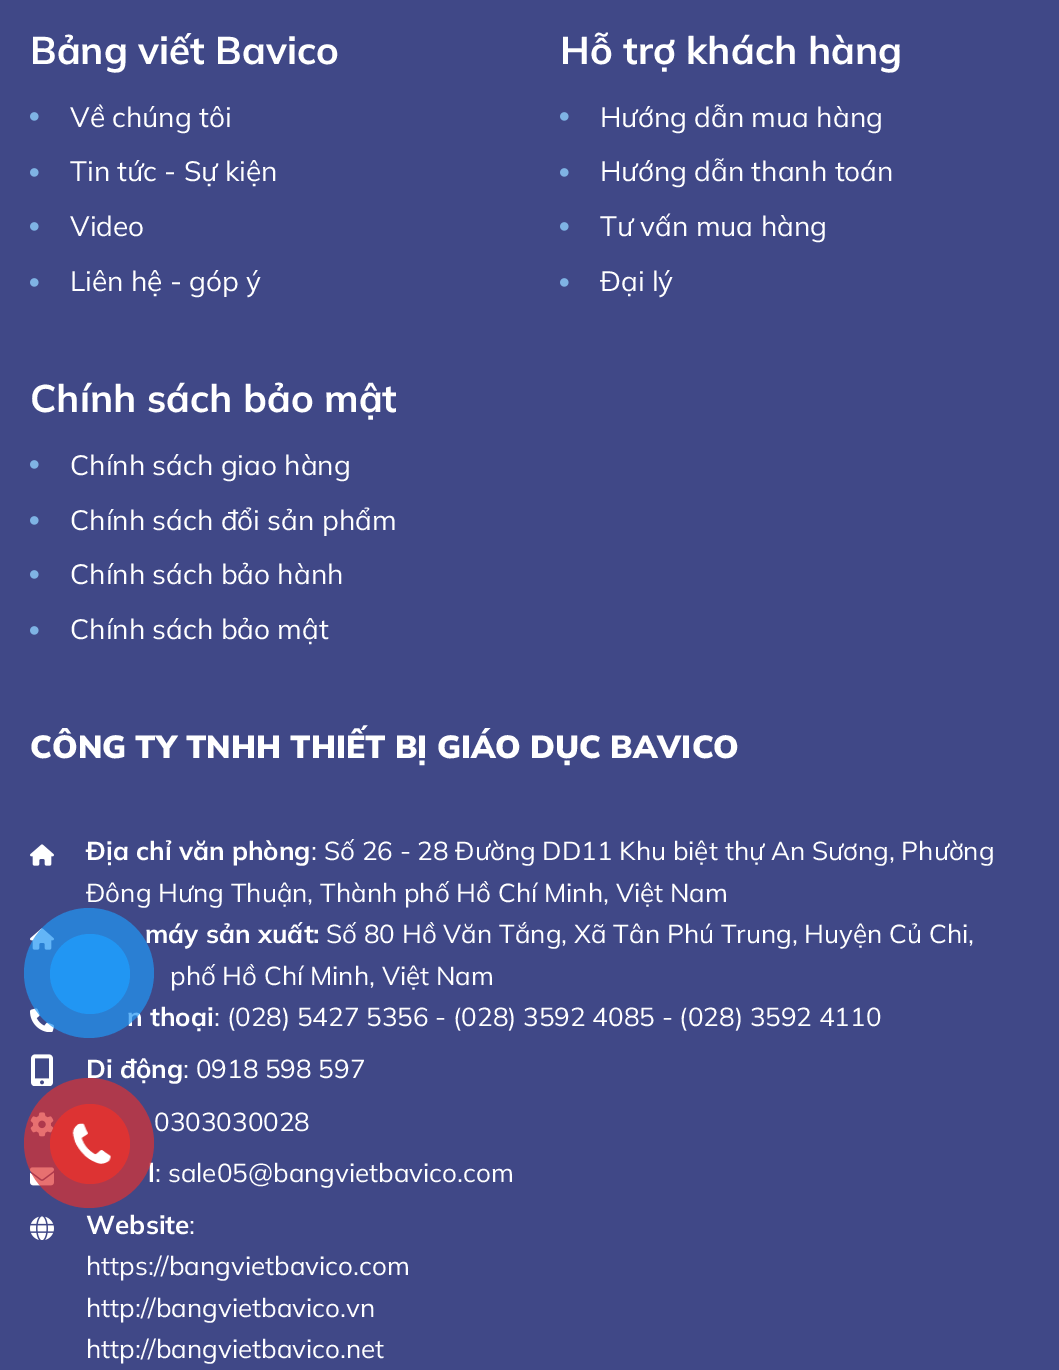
%!PS-Adobe-3.0
%%BoundingBox: 0 0 1059 1370
%%LanguageLevel: 3
%%Pages: 1
%%EndComments
%%BeginProlog
/setink { 3 { 255 div 3 1 roll } repeat setrgbcolor } def
/usefont { [ exch dup neg 0 0 3 -1 roll 0 0 ] selectfont } def
/drawtext { setink usefont moveto show } def
/fillbox { setink rectfill } def
/setalpha { dup .setfillconstantalpha .setstrokeconstantalpha } def
/disc { newpath 0 360 arc closepath } def
/drawimage { 5 dict begin { /h /w /y /x /name } { exch def } forall
  gsave x y translate w h scale
  w h 8 [w 0 0 h 0 0] name (r) file false 3 colorimage grestore end } def
%%EndProlog
%%BeginSetup
<< /PageSize [1059 1370] /PageUsesTransparency true >> setpagedevice
%%EndSetup
%%Page: 1 1
0 .pushpdf14devicefilter
0 1370 translate 1 -1 scale
4 setmiterlimit
0 0 1059 1370 64 72 135 fillbox
(Bảng viết Bavico) 30 64 /Mulish-Bold 38.5 255 255 255 drawtext
(assets/img1.rgb) 30 112 9 9 drawimage
(Về chúng tôi) 70 127 /Mulish-Regular 28 255 255 255 drawtext
(assets/img1.rgb) 30 168 9 9 drawimage
(Tin tức - Sự kiện) 70 181 /Mulish-Regular 28 255 255 255 drawtext
(assets/img1.rgb) 30 222 9 9 drawimage
(Video) 70 236 /Mulish-Regular 28 255 255 255 drawtext
(assets/img1.rgb) 30 278 9 9 drawimage
(Liên hệ - góp ý) 70 291 /Mulish-Regular 28 255 255 255 drawtext
(Hỗ trợ khách hàng) 560 64 /Mulish-Bold 38.5 255 255 255 drawtext
(assets/img1.rgb) 560 112 9 9 drawimage
(Hướng dẫn mua hàng) 600 127 /Mulish-Regular 28 255 255 255 drawtext
(assets/img1.rgb) 560 168 9 9 drawimage
(Hướng dẫn thanh toán) 600 181 /Mulish-Regular 28 255 255 255 drawtext
(assets/img1.rgb) 560 222 9 9 drawimage
(Tư vấn mua hàng) 600 236 /Mulish-Regular 28 255 255 255 drawtext
(assets/img1.rgb) 560 278 9 9 drawimage
(Đại lý) 600 291 /Mulish-Regular 28 255 255 255 drawtext
(Chính sách bảo mật) 30 412 /Mulish-Bold 38.5 255 255 255 drawtext
(assets/img1.rgb) 30 460 9 9 drawimage
(Chính sách giao hàng) 70 475 /Mulish-Regular 28 255 255 255 drawtext
(assets/img1.rgb) 30 516 9 9 drawimage
(Chính sách đổi sản phẩm) 70 530 /Mulish-Regular 28 255 255 255 drawtext
(assets/img1.rgb) 30 570 9 9 drawimage
(Chính sách bảo hành) 70 584 /Mulish-Regular 28 255 255 255 drawtext
(assets/img1.rgb) 30 626 9 9 drawimage
(Chính sách bảo mật) 70 639 /Mulish-Regular 28 255 255 255 drawtext
(CÔNG TY TNHH THIẾT BỊ GIÁO DỤC BAVICO) 30 758 /Mulish-Black 32 255 255 255 drawtext
(assets/img2.rgb) 30 844 24 22 drawimage
(Địa chỉ văn phòng) 86 860 /Mulish-Bold 26 255 255 255 drawtext
(: Số 26 - 28 Đường DD11 Khu biệt thự An Sương, Phường) 311 860 /Mulish-Regular 26 255 255 255 drawtext
(Đông Hưng Thuận, Thành phố Hồ Chí Minh, Việt Nam) 86 902 /Mulish-Regular 26 255 255 255 drawtext
(assets/img2.rgb) 30 928 24 22 drawimage
(máy sản xuất:) 145 943 /Mulish-Bold 26 255 255 255 drawtext
(Số 80 Hồ Văn Tắng, Xã Tân Phú Trung, Huyện Củ Chi,) 326 943 /Mulish-Regular 26 255 255 255 drawtext
(phố Hồ Chí Minh, Việt Nam) 170 985 /Mulish-Regular 26 255 255 255 drawtext
(assets/img3.rgb) 30 1008 24 24 drawimage
(n thoại) 127 1026 /Mulish-Bold 26 255 255 255 drawtext
(: \(028\) 5427 5356 - \(028\) 3592 4085 - \(028\) 3592 4110) 214 1026 /Mulish-Regular 26 255 255 255 drawtext
(assets/img4.rgb) 31 1054 22 32 drawimage
(Di động) 86 1078 /Mulish-Bold 26 255 255 255 drawtext
(: 0918 598 597) 183 1078 /Mulish-Regular 26 255 255 255 drawtext
(assets/img5.rgb) 30 1112 24 25 drawimage
(0303030028) 154 1131 /Mulish-Regular 26 255 255 255 drawtext
(assets/img6.rgb) 30 1167 24 19 drawimage
(l) 148 1182 /Mulish-Bold 26 255 255 255 drawtext
(: sale05@bangvietbavico.com) 155 1182 /Mulish-Regular 26 255 255 255 drawtext
(assets/img7.rgb) 30 1216 24 24 drawimage
(Website) 86 1234 /Mulish-Bold 26 255 255 255 drawtext
(:) 189 1234 /Mulish-Regular 26 255 255 255 drawtext
(https://bangvietbavico.com) 86 1275 /Mulish-Regular 26 255 255 255 drawtext
(http://bangvietbavico.vn) 86 1317 /Mulish-Regular 26 255 255 255 drawtext
(http://bangvietbavico.net) 86 1358 /Mulish-Regular 26 255 255 255 drawtext
0.7 setalpha
33 150 243 setink
89 973 65 disc fill
1 setalpha
90 974 40 disc fill
0.7 setalpha
221 51 51 setink
89 1143 65 disc fill
1 setalpha
90 1144 40 disc fill
(assets/img8.rgb) 72 1123 39 41 drawimage
.poppdf14devicefilter showpage
%%EOF
